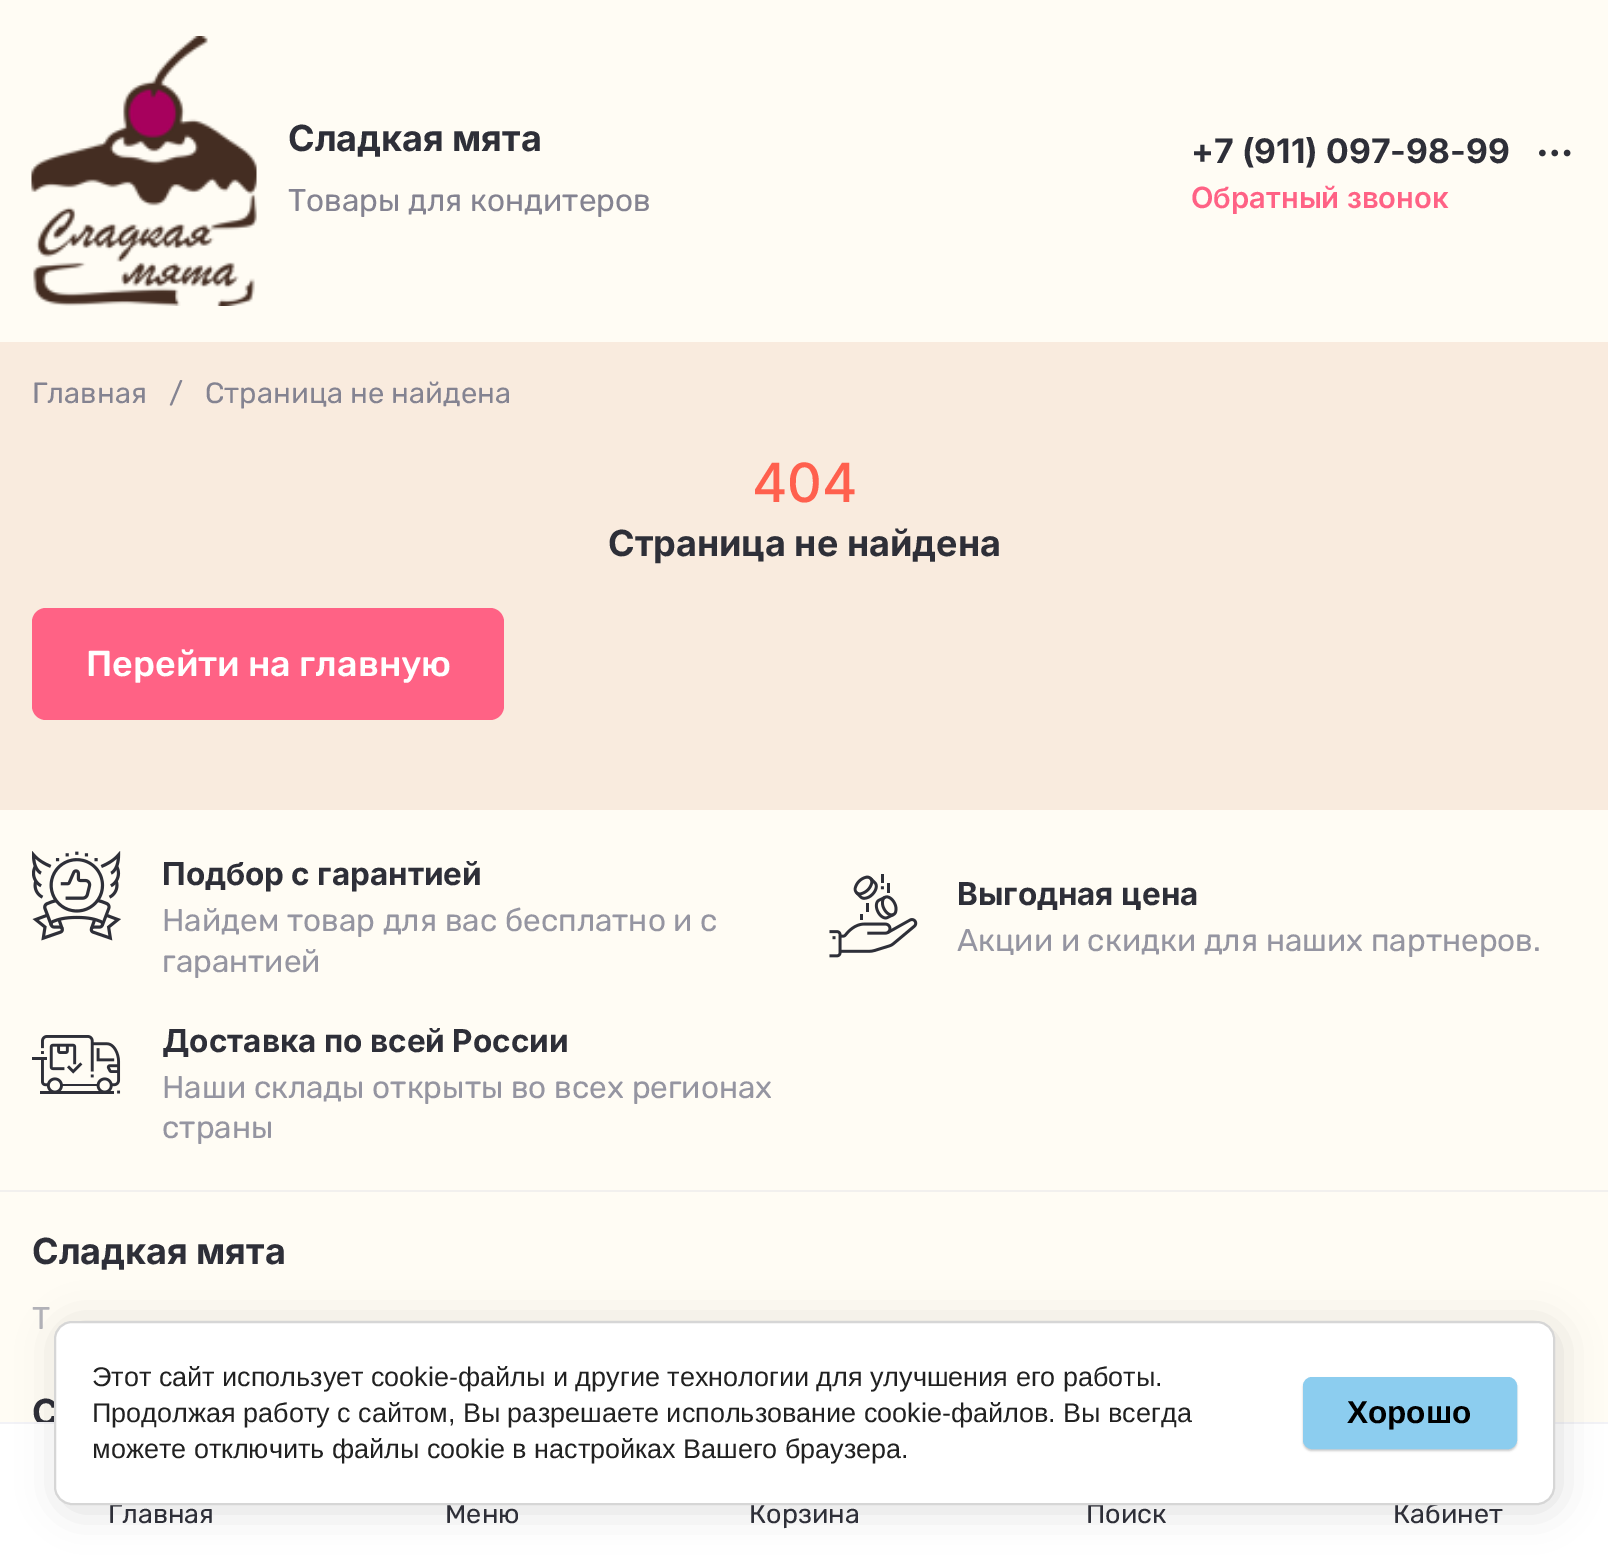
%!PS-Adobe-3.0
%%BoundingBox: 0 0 1608 1558
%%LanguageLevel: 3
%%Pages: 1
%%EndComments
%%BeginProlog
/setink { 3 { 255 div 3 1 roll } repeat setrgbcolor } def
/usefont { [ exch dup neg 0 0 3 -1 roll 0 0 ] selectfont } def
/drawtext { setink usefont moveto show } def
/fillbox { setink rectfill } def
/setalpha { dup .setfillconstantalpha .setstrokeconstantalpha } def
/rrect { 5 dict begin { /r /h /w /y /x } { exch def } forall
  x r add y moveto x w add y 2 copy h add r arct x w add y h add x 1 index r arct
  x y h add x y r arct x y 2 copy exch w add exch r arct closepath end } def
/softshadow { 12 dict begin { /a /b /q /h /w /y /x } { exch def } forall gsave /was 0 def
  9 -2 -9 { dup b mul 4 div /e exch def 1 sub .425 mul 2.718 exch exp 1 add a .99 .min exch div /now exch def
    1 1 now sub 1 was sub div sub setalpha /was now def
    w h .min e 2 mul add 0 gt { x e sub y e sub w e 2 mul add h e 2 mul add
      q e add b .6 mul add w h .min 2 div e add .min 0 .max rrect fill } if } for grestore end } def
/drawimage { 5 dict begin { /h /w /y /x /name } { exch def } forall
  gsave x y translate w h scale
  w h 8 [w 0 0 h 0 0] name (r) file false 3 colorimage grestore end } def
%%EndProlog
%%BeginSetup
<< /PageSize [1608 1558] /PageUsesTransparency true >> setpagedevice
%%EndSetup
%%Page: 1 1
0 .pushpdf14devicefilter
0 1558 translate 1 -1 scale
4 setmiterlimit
0 0 1608 1558 249 235 222 fillbox
0 0 1608 342 255 252 244 fillbox
(assets/img1.rgb) 31 36 226 270 drawimage
(Сладкая мята) 288 151 /Inter-Bold 36 46 47 56 drawtext
(Товары для кондитеров) 288 211 /Rubik-Regular 31.5 132 131 145 drawtext
(+7 \(911\) 097-98-99) 1191 163 /Inter-Bold 33.75 46 47 56 drawtext
(assets/img2.rgb) 1539 149 32 8 drawimage
(Обратный звонок) 1191 208 /Inter-SemiBold 29.25 255 98 133 drawtext
(Главная) 32 403 /Rubik-Regular 29.25 132 131 145 drawtext
(/) 169 403 /Rubik-Regular 29.25 132 131 145 drawtext
(Страница не найдена) 205 403 /Rubik-Regular 29.25 132 131 145 drawtext
(404) 752 502 /Inter-Medium 54 255 96 78 drawtext
(Страница не найдена) 608 556 /Inter-Bold 36 46 47 56 drawtext
255 98 133 setink
32 608 472 112 14 rrect fill
(Перейти на главную) 86 676 /Rubik-Medium 36 255 255 255 drawtext
0 810 1608 612 255 252 244 fillbox
0 1190 1608 2 242 240 238 fillbox
(assets/img3.rgb) 32 851 89 90 drawimage
(Подбор с гарантией) 162 885 /Inter-Bold 31.5 46 47 56 drawtext
(Найдем товар для вас бесплатно и с) 162 931 /Rubik-Regular 31.5 149 149 161 drawtext
(гарантией) 162 972 /Rubik-Regular 31.5 149 149 161 drawtext
(assets/img4.rgb) 829 874 89 84 drawimage
(Выгодная цена) 957 905 /Inter-Bold 31.5 46 47 56 drawtext
(Акции и скидки для наших партнеров.) 957 951 /Rubik-Regular 31.5 149 149 161 drawtext
(assets/img5.rgb) 32 1035 89 59 drawimage
(Доставка по всей России) 162 1052 /Inter-Bold 31.5 46 47 56 drawtext
(Наши склады открыты во всех регионах) 162 1098 /Rubik-Regular 31.5 149 149 161 drawtext
(страны) 162 1138 /Rubik-Regular 31.5 149 149 161 drawtext
(Сладкая мята) 32 1264 /Inter-Bold 36 46 47 56 drawtext
(Т) 32 1329 /Rubik-Regular 31.5 179 179 185 drawtext
(С) 32 1425 /Inter-Bold 36 46 47 56 drawtext
0 1424 1608 134 255 255 255 fillbox
0 1422 1608 2 242 242 246 fillbox
0 0 0 setink
59 1325 1500 185 18 20 0.14 softshadow
(Главная) 108 1523 /Rubik-Regular 27 46 47 56 drawtext
(Меню) 445 1523 /Rubik-Regular 27 46 47 56 drawtext
(Корзина) 749 1523 /Rubik-Regular 27 46 47 56 drawtext
(Поиск) 1086 1523 /Rubik-Regular 27 46 47 56 drawtext
(Кабинет) 1393 1523 /Rubik-Regular 27 46 47 56 drawtext
255 255 255 setink
55 1322 1499 182 17 rrect gsave fill grestore
214 214 214 setink
2 setlinewidth
stroke
(Этот сайт использует cookie-файлы и другие технологии для улучшения его работы.) 92 1386 /LiberationSans-Regular 27 33 33 33 drawtext
(Продолжая работу с сайтом, Вы разрешаете использование cookie-файлов. Вы всегда) 92 1422 /LiberationSans-Regular 27 33 33 33 drawtext
(можете отключить файлы cookie в настройках Вашего браузера.) 92 1458 /LiberationSans-Regular 27 33 33 33 drawtext
0 0 0 setink
1303 1379 214 72 9 1 0.2 softshadow
140 205 239 setink
1304 1378 212 70 8 rrect gsave fill grestore
stroke
(Хорошо) 1347 1423 /LiberationSans-Bold 31.5 0 0 0 drawtext
.poppdf14devicefilter showpage
%%EOF
